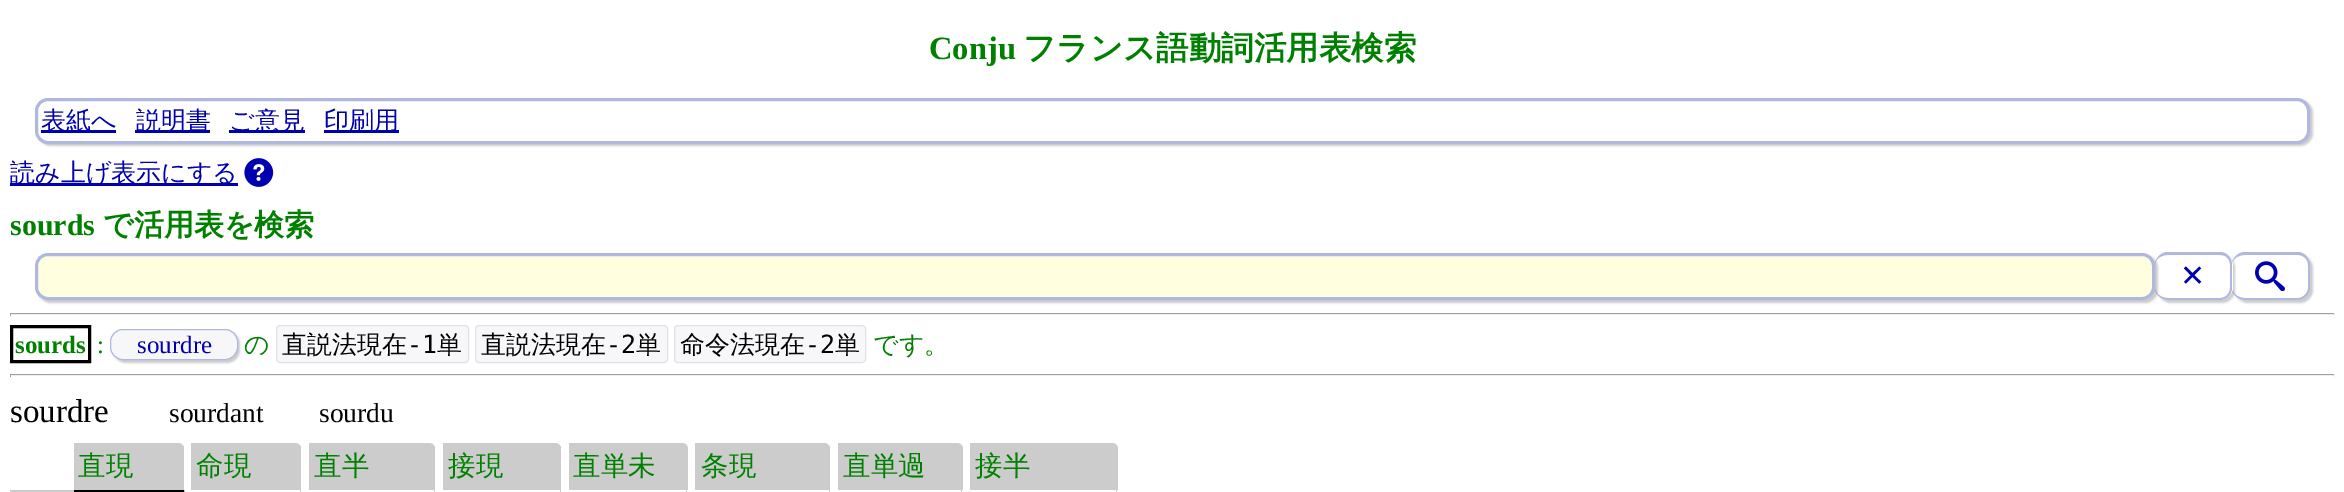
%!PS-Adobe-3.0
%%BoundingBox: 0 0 2344 492
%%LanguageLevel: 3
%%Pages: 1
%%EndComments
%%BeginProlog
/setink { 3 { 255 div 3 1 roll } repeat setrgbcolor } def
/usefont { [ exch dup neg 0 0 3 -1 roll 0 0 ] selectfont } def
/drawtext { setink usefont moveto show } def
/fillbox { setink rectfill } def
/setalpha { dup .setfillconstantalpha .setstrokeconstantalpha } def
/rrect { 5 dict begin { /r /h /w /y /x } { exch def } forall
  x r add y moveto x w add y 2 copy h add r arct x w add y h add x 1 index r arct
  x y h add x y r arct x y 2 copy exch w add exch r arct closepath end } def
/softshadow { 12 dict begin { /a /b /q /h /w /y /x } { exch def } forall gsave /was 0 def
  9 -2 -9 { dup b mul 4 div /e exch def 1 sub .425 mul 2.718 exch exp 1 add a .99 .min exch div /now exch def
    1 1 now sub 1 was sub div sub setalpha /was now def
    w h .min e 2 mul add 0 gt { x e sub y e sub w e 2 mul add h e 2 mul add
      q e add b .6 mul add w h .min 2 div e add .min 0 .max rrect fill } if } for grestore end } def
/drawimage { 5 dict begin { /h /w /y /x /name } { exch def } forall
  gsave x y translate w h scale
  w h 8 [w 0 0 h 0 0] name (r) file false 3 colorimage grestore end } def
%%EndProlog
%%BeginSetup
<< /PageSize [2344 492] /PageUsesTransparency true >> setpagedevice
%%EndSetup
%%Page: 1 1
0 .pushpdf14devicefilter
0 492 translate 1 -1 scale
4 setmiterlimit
0 0 2344 492 255 255 255 fillbox
(Conju) 929 59 /LiberationSerif-Bold 32.5 0 128 0 drawtext
(フランス語動詞活用表検索) 1023 59 /WenQuanYiZenHei-Bold 32.5 0 128 0 drawtext
0 0 0 setink
38 100 2275 46 13 1 0.2 softshadow
255 255 255 setink
36.5 99.5 2272 43 11.5 rrect gsave fill grestore
176 184 224 setink
3 setlinewidth
stroke
41 130 75 3 0 0 176 fillbox
(表紙へ) 41 129 /WenQuanYiZenHei-Medium 25 0 0 176 drawtext
135 130 75 3 0 0 176 fillbox
(説明書) 136 129 /WenQuanYiZenHei-Medium 25 0 0 176 drawtext
229 130 76 3 0 0 176 fillbox
(ご意見) 229 129 /WenQuanYiZenHei-Medium 25 0 0 176 drawtext
324 130 75 3 0 0 176 fillbox
(印刷用) 324 129 /WenQuanYiZenHei-Medium 25 0 0 176 drawtext
10 183 228 3 0 0 176 fillbox
(読み上げ表示にする) 10 181 /WenQuanYiZenHei-Medium 25 0 0 176 drawtext
(assets/img1.rgb) 244 158 30 29 drawimage
(sourds) 10 235 /LiberationSerif-Bold 30 0 128 0 drawtext
(で活用表を検索) 103 235 /WenQuanYiZenHei-Bold 30 0 128 0 drawtext
0 0 0 setink
2235 255 78 48 13 1 0.2 softshadow
255 255 255 setink
2233 253 77 47 13 rrect fill
176 184 224 setink
2245 252 moveto 2298 252 lineto 2304 252 2310 258 2310 265 curveto 2310 288 lineto 2310 294 2304 300 2298 300 curveto 2245 300 lineto 2238 300 2232 294 2232 288 curveto 2232 265 lineto 2232 258 2238 252 2245 252 curveto closepath 2245 255 moveto 2298 255 lineto 2303 255 2308 259 2308 265 curveto 2308 288 lineto 2308 293 2303 298 2298 298 curveto 2245 298 lineto 2238 298 2232 293 2232 288 curveto 2232 265 lineto 2232 259 2238 255 2245 255 curveto closepath eofill
0 0 0 setink
2158 255 77 48 13 1 0.2 softshadow
255 255 255 setink
2155 253 78 47 13 rrect fill
176 184 224 setink
2168 252 moveto 2220 252 lineto 2227 252 2232 258 2232 265 curveto 2232 288 lineto 2232 294 2227 300 2220 300 curveto 2168 300 lineto 2161 300 2155 294 2155 288 curveto 2155 265 lineto 2155 258 2161 252 2168 252 curveto closepath 2168 255 moveto 2220 255 lineto 2226 255 2230 259 2230 265 curveto 2230 288 lineto 2230 293 2226 298 2220 298 curveto 2168 298 lineto 2161 298 2155 293 2155 288 curveto 2155 265 lineto 2155 259 2161 255 2168 255 curveto closepath eofill
0 0 0 setink
38 255 2120 48 13 1 0.2 softshadow
255 255 224 setink
36.5 254.5 2117 44 11.5 rrect gsave fill grestore
176 184 224 setink
stroke
(✕) 2180 286 /DejaVuSans-Regular 30 0 0 176 drawtext
(assets/img2.rgb) 2255 261 30 30 drawimage
10 313 2325 1 159 159 159 fillbox
2334 313 1 3 238 238 238 fillbox
10 314 2325 1 238 238 238 fillbox
10 313 1 3 159 159 159 fillbox
0 0 0 setink
11.5 326.5 78 35 rectstroke
(sourds) 15 353 /LiberationSerif-Bold 25 0 128 0 drawtext
(:) 97 353 /LiberationSerif-Regular 25 0 128 0 drawtext
0 0 0 setink
113 331 127 32 13 1 0.2 softshadow
247 247 249 setink
110.5 329.5 127 30 12.5 rrect gsave fill grestore
176 184 224 setink
1 setlinewidth
stroke
(sourdre) 137 353 /LiberationSerif-Regular 25 0 0 176 drawtext
(の) 244 353 /WenQuanYiZenHei-Medium 25 0 128 0 drawtext
247 247 249 setink
276.5 325.5 192 37 3.5 rrect gsave fill grestore
225 225 232 setink
stroke
(直説法現在) 282 353 /WenQuanYiZenHei-Medium 25 0 0 0 drawtext
(-1) 407 353 /DejaVuSansMono-Regular 25 0 0 0 drawtext
(単) 437 353 /WenQuanYiZenHei-Medium 25 0 0 0 drawtext
247 247 249 setink
475.5 325.5 192 37 3.5 rrect gsave fill grestore
225 225 232 setink
stroke
(直説法現在) 481 353 /WenQuanYiZenHei-Medium 25 0 0 0 drawtext
(-2) 606 353 /DejaVuSansMono-Regular 25 0 0 0 drawtext
(単) 636 353 /WenQuanYiZenHei-Medium 25 0 0 0 drawtext
247 247 249 setink
674.5 325.5 191 37 3.5 rrect gsave fill grestore
225 225 232 setink
stroke
(命令法現在) 680 353 /WenQuanYiZenHei-Medium 25 0 0 0 drawtext
(-2) 805 353 /DejaVuSansMono-Regular 25 0 0 0 drawtext
(単) 835 353 /WenQuanYiZenHei-Medium 25 0 0 0 drawtext
(です。) 873 353 /WenQuanYiZenHei-Medium 25 0 128 0 drawtext
10 374 2325 1 159 159 159 fillbox
2334 374 1 3 238 238 238 fillbox
10 375 2325 1 238 238 238 fillbox
10 374 1 3 159 159 159 fillbox
(sourdre) 10 422 /LiberationSerif-Regular 33 0 0 0 drawtext
(sourdant) 169 422 /LiberationSerif-Regular 27.5 0 0 0 drawtext
(sourdu) 319 422 /LiberationSerif-Regular 27.5 0 0 0 drawtext
204 204 204 setink
74 443 moveto 178 443 lineto 181.5 443 184 445.5 184 449 curveto 184 490 lineto 74 490 lineto closepath fill
183 446 1 2 204 204 204 fillbox
(直現) 78 475 /WenQuanYiZenHei-Medium 27.5 0 128 0 drawtext
0 0 0 setink
3 setlinewidth
75.5 491.5 107 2 rectstroke
204 204 204 setink
191 443 moveto 295 443 lineto 298.5 443 301 445.5 301 449 curveto 301 490 lineto 191 490 lineto closepath fill
300 446 1 2 204 204 204 fillbox
(命現) 196 475 /WenQuanYiZenHei-Medium 27.5 0 128 0 drawtext
300 490 1 2 204 204 204 fillbox
309 443 moveto 429 443 lineto 432.5 443 435 445.5 435 449 curveto 435 490 lineto 309 490 lineto closepath fill
434 446 1 2 204 204 204 fillbox
(直半) 314 475 /WenQuanYiZenHei-Medium 27.5 0 128 0 drawtext
434 490 1 2 204 204 204 fillbox
443 443 moveto 555 443 lineto 558.5 443 561 445.5 561 449 curveto 561 490 lineto 443 490 lineto closepath fill
560 446 1 2 204 204 204 fillbox
(接現) 448 475 /WenQuanYiZenHei-Medium 27.5 0 128 0 drawtext
560 490 1 2 204 204 204 fillbox
569 443 moveto 682 443 lineto 685.5 443 688 445.5 688 449 curveto 688 490 lineto 569 490 lineto closepath fill
(直単未) 573 475 /WenQuanYiZenHei-Medium 27.5 0 128 0 drawtext
686 490 1 2 204 204 204 fillbox
695 443 moveto 824 443 lineto 827.5 443 830 445.5 830 449 curveto 830 490 lineto 695 490 lineto closepath fill
829 446 1 2 204 204 204 fillbox
(条現) 701 475 /WenQuanYiZenHei-Medium 27.5 0 128 0 drawtext
829 490 1 2 204 204 204 fillbox
838 443 moveto 957 443 lineto 960.5 443 963 445.5 963 449 curveto 963 490 lineto 838 490 lineto closepath fill
(直単過) 843 475 /WenQuanYiZenHei-Medium 27.5 0 128 0 drawtext
961 490 1 2 204 204 204 fillbox
970 443 moveto 1112 443 lineto 1115.5 443 1118 445.5 1118 449 curveto 1118 490 lineto 970 490 lineto closepath fill
(接半) 975 475 /WenQuanYiZenHei-Medium 27.5 0 128 0 drawtext
1116 490 1 2 204 204 204 fillbox
10 490 64 2 204 204 204 fillbox
.poppdf14devicefilter showpage
%%EOF
